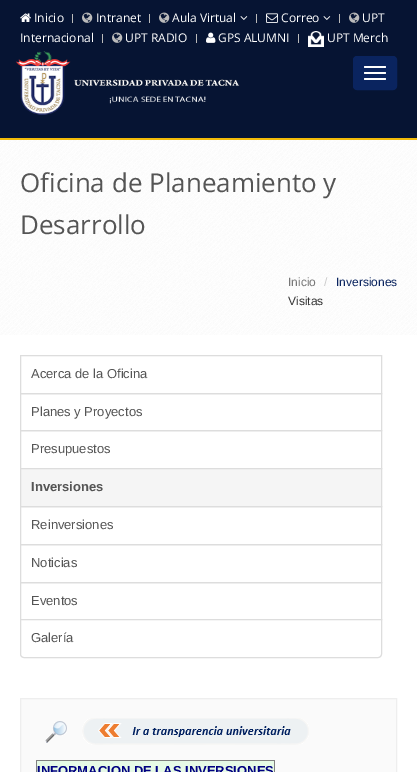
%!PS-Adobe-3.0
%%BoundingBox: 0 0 417 772
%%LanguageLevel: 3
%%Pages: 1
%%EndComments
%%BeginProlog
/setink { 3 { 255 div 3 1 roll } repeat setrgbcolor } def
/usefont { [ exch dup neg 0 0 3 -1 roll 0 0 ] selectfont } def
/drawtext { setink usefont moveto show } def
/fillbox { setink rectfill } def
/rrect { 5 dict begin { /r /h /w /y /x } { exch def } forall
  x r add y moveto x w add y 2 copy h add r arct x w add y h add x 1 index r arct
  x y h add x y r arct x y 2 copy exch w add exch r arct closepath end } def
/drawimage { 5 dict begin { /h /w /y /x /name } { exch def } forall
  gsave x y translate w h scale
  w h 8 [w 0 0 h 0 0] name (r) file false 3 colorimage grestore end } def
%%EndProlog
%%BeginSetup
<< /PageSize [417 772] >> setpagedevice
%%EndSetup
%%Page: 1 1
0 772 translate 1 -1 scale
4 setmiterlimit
0 0 417 772 255 255 255 fillbox
0 0 417 138 6 20 51 fillbox
(assets/img1.rgb) 159 12 11 11 drawimage
(Aula Virtual) 172 22 /OpenSans-Regular 12 255 255 255 drawtext
(assets/img2.rgb) 240 16 8 4 drawimage
(assets/img1.rgb) 349 12 11 11 drawimage
(UPT) 362 22 /OpenSans-Regular 12 255 255 255 drawtext
(Internacional) 20 42 /OpenSans-Regular 12 255 255 255 drawtext
(assets/img3.rgb) 20 13 11 9 drawimage
(Inicio) 34 22 /OpenSans-Regular 12 255 255 255 drawtext
72 14 1 9 187 187 187 fillbox
(assets/img1.rgb) 82 12 11 11 drawimage
(Intranet) 96 22 /OpenSans-Regular 12 255 255 255 drawtext
149 14 1 9 187 187 187 fillbox
256 14 1 9 187 187 187 fillbox
(assets/img4.rgb) 266 13 12 10 drawimage
(Correo) 281 22 /OpenSans-Regular 12 255 255 255 drawtext
(assets/img2.rgb) 323 16 8 4 drawimage
339 14 1 9 187 187 187 fillbox
102 34 1 9 187 187 187 fillbox
(assets/img1.rgb) 112 32 11 11 drawimage
(UPT RADIO) 125 42 /OpenSans-Regular 12 255 255 255 drawtext
196 34 1 9 187 187 187 fillbox
(assets/img5.rgb) 206 32 10 11 drawimage
(GPS ALUMNI) 218 42 /OpenSans-Regular 12 255 255 255 drawtext
298 34 1 9 187 187 187 fillbox
(assets/img6.rgb) 308 31 16 16 drawimage
(UPT Merch) 327 42 /OpenSans-Regular 12 255 255 255 drawtext
0 138 417 2 242 187 9 fillbox
(assets/img7.rgb) 15 51 225 64 drawimage
10 36 95 setink
353.5 56.5 43 33 3.5 rrect gsave fill grestore
stroke
255 255 255 setink
364 66 22 2 1 rrect fill
364 72 22 2 1 rrect fill
364 78 22 2 1 rrect fill
(assets/img8.rgb) 0 140 417 195 drawimage
(Oficina de Planeamiento y) 20 192 /OpenSans-Regular 26 85 85 85 drawtext
(Desarrollo) 20 234 /OpenSans-Regular 26 85 85 85 drawtext
(Inicio) 288 286 /LiberationSans-Regular 12 119 119 119 drawtext
(/) 324 286 /LiberationSans-Regular 12 204 204 204 drawtext
(Inversiones) 336 286 /LiberationSans-Regular 12 10 36 95 drawtext
(Visitas) 288 305 /LiberationSans-Regular 12 51 51 51 drawtext
221 221 221 setink
20.5 355.5 361 38 rectstroke
(Acerca de la Oficina) 31 378 /LiberationSans-Regular 13 85 85 85 drawtext
221 221 221 setink
20.5 393.5 361 37 rectstroke
(Planes y Proyectos) 31 416 /LiberationSans-Regular 13 85 85 85 drawtext
221 221 221 setink
20.5 430.5 361 38 rectstroke
(Presupuestos) 31 453 /LiberationSans-Regular 13 85 85 85 drawtext
221 221 221 setink
20.5 506.5 361 38 rectstroke
245 245 245 setink
20.5 468.5 moveto 381.5 468.5 lineto 381.5 506.5 lineto 20.5 506.5 lineto closepath gsave fill grestore
221 221 221 setink
stroke
(Inversiones) 31 491 /LiberationSans-Bold 13 85 85 85 drawtext
(Reinversiones) 31 529 /LiberationSans-Regular 13 85 85 85 drawtext
221 221 221 setink
20.5 544.5 361 38 rectstroke
(Noticias) 31 567 /LiberationSans-Regular 13 85 85 85 drawtext
221 221 221 setink
20.5 582.5 361 37 rectstroke
(Eventos) 31 605 /LiberationSans-Regular 13 85 85 85 drawtext
255 255 255 setink
20.5 619.5 moveto 381.5 619.5 lineto 381.5 654 lineto 381.5 656 380 657.5 378 657.5 curveto 24 657.5 lineto 22 657.5 20.5 656 20.5 654 curveto closepath gsave fill grestore
221 221 221 setink
stroke
(Galería) 31 642 /LiberationSans-Regular 13 85 85 85 drawtext
250 250 250 setink
20.5 698.5 moveto 396.5 698.5 lineto 396.5 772.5 lineto 20.5 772.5 lineto closepath gsave fill grestore
238 238 238 setink
stroke
(assets/img9.rgb) 45 718 264 27 drawimage
37 761 237 11 230 250 230 fillbox
36 760 239 1 128 128 128 fillbox
274 760 1 12 128 128 128 fillbox
36 760 1 12 128 128 128 fillbox
(INFORMACION DE LAS INVERSIONES) 37 775 /LiberationSans-Bold 13 0 0 128 drawtext
showpage
%%EOF
